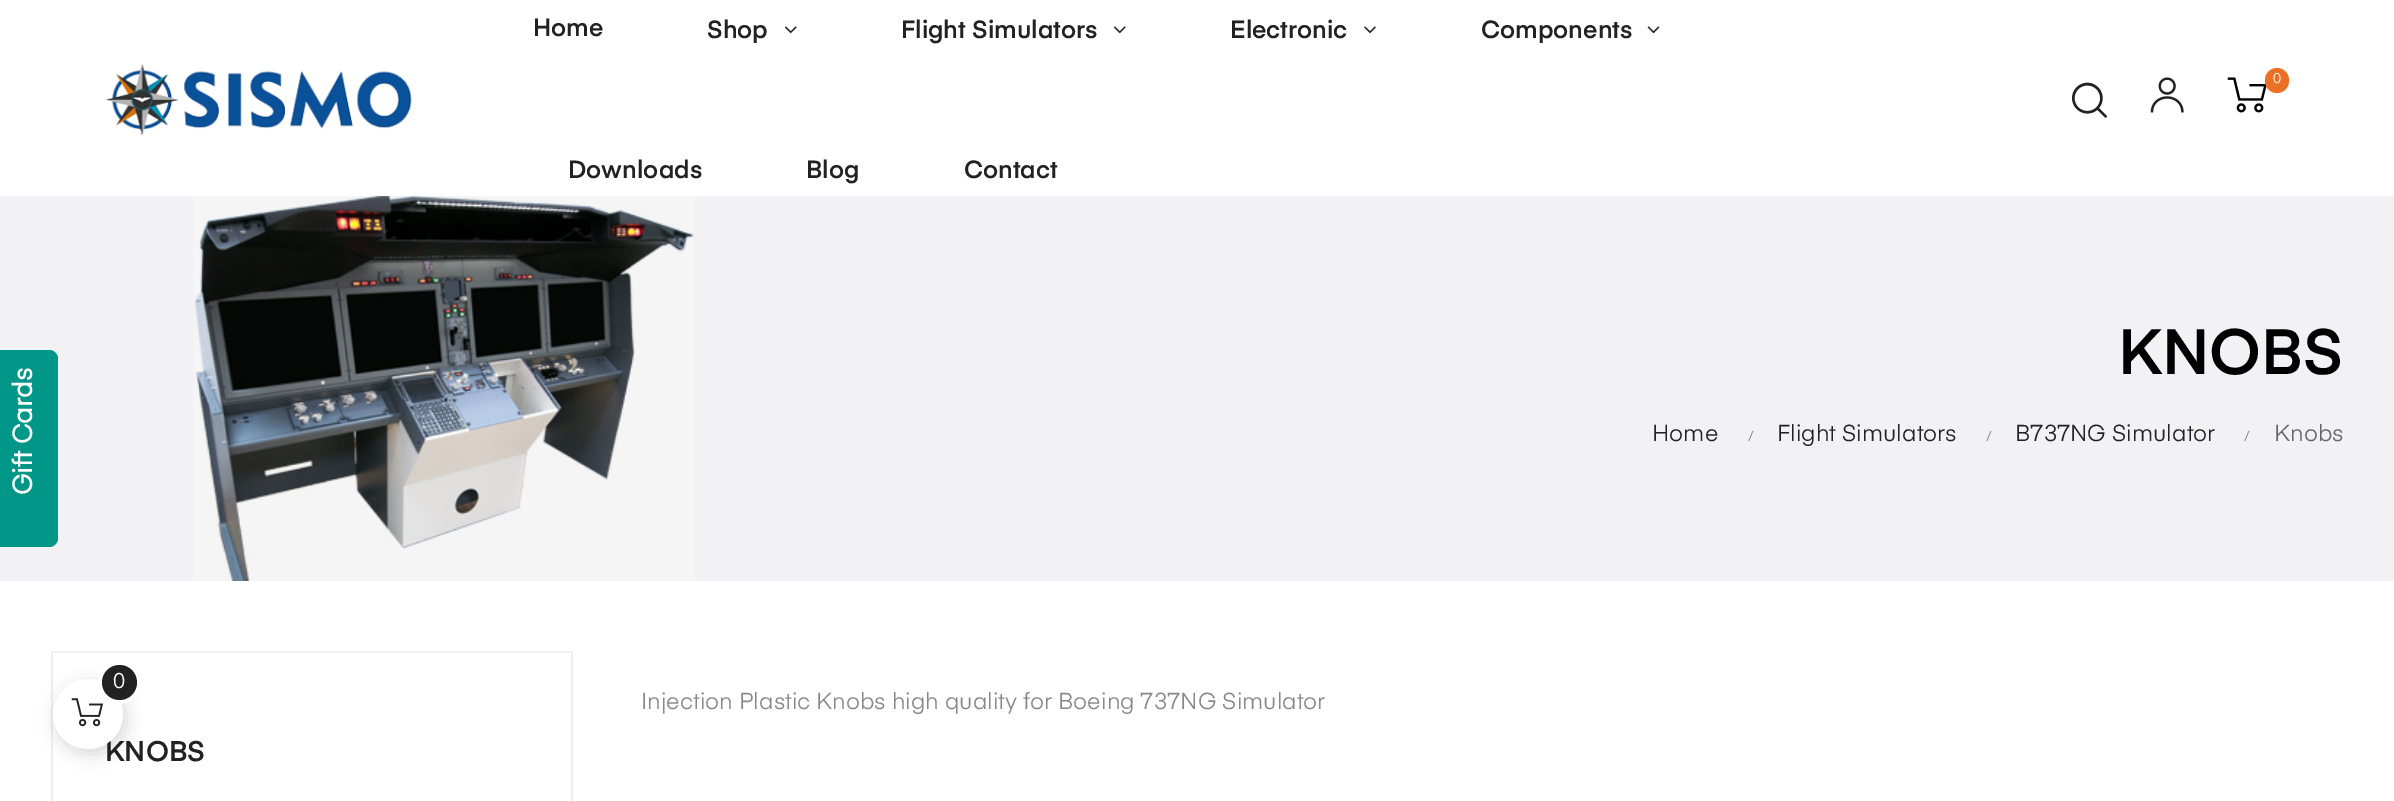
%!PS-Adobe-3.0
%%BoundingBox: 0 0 2394 801
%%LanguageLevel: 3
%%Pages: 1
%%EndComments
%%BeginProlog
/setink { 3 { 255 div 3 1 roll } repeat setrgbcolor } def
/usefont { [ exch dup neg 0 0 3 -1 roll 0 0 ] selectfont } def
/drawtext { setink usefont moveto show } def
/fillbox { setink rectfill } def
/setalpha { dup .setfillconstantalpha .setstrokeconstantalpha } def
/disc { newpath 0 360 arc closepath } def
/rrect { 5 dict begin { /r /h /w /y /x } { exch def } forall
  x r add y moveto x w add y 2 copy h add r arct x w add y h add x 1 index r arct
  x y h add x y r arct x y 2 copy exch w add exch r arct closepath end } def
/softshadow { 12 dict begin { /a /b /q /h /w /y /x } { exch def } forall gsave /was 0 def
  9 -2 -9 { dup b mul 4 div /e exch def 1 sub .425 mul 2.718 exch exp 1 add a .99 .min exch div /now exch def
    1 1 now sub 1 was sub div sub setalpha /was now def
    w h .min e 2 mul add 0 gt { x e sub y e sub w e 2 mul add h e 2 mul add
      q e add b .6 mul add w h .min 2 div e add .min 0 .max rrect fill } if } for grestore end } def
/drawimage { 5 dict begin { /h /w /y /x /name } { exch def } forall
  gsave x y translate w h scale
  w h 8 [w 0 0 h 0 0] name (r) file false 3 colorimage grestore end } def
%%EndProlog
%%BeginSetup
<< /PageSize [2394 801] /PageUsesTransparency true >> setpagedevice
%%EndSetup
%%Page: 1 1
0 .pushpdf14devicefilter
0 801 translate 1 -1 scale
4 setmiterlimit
0 0 2394 801 255 255 255 fillbox
(assets/img1.rgb) 106 64 306 72 drawimage
(Home) 533 36 /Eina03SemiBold-SemiBold 24.5 34 34 34 drawtext
(Shop) 707 38 /Eina03SemiBold-SemiBold 24.5 34 34 34 drawtext
(assets/img2.rgb) 784 26 13 8 drawimage
(Flight Simulators) 901 38 /Eina03SemiBold-SemiBold 24.5 34 34 34 drawtext
(assets/img2.rgb) 1113 26 13 8 drawimage
(Electronic) 1230 38 /Eina03SemiBold-SemiBold 24.5 34 34 34 drawtext
(assets/img3.rgb) 1364 26 12 8 drawimage
(Components) 1481 38 /Eina03SemiBold-SemiBold 24.5 34 34 34 drawtext
(assets/img4.rgb) 1647 26 13 8 drawimage
(Downloads) 568 178 /Eina03SemiBold-SemiBold 24.5 34 34 34 drawtext
(Blog) 806 178 /Eina03SemiBold-SemiBold 24.5 34 34 34 drawtext
(Contact) 964 178 /Eina03SemiBold-SemiBold 24.5 34 34 34 drawtext
(assets/img5.rgb) 2072 82 35 36 drawimage
(assets/img6.rgb) 2150 77 34 36 drawimage
(assets/img7.rgb) 2227 77 40 36 drawimage
235 112 37 setink
2265 68 24 25 12 rrect fill
(0) 2273 83 /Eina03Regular-Regular 14 255 255 255 drawtext
0 196 2394 385 242 242 244 fillbox
0 150 136 setink
-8 547 moveto -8 350 lineto 49 350 lineto 54 350 58 354 58 359 curveto 58 538 lineto 58 543 54 547 49 547 curveto closepath fill
/Eina03Regular-Bold 26.25 usefont
255 255 255 setink
gsave 32 495 translate -90 rotate 0 0 moveto (Gift Cards) show grestore
(assets/img8.rgb) 194 196 500 385 drawimage
(KNOBS) 2118 374 /Eina03SemiBold-SemiBold 63 0 0 0 drawtext
(Home) 1652 441 /Eina03Regular-Regular 22.75 34 34 34 drawtext
(/) 1748 441 /Eina03Regular-Regular 14 136 136 136 drawtext
(Flight Simulators) 1777 441 /Eina03Regular-Regular 22.75 34 34 34 drawtext
(/) 1986 441 /Eina03Regular-Regular 14 136 136 136 drawtext
(B737NG Simulator) 2015 441 /Eina03Regular-Regular 22.75 34 34 34 drawtext
(/) 2244 441 /Eina03Regular-Regular 14 136 136 136 drawtext
(Knobs) 2274 441 /Eina03Regular-Regular 22.75 102 102 102 drawtext
(Injection Plastic Knobs high quality for Boeing 737NG Simulator) 641 709 /Eina03Regular-Regular 22.75 136 136 136 drawtext
51 651 521 2 239 239 239 fillbox
571 651 2 150 239 239 239 fillbox
51 651 2 150 239 239 239 fillbox
(KNOBS) 105 761 /Eina03SemiBold-SemiBold 28 34 34 34 drawtext
0 0 0 setink
56 684 70 70 35 9 0.15 softshadow
255 255 255 setink
88 714 35 disc fill
(assets/img9.rgb) 71 698 33 29 drawimage
4 setlinewidth
119 683 19 disc stroke
34 34 34 setink
119.5 682.5 17.5 disc fill
(0) 113 688 /Eina03Regular-Regular 21 255 255 255 drawtext
.poppdf14devicefilter showpage
%%EOF
